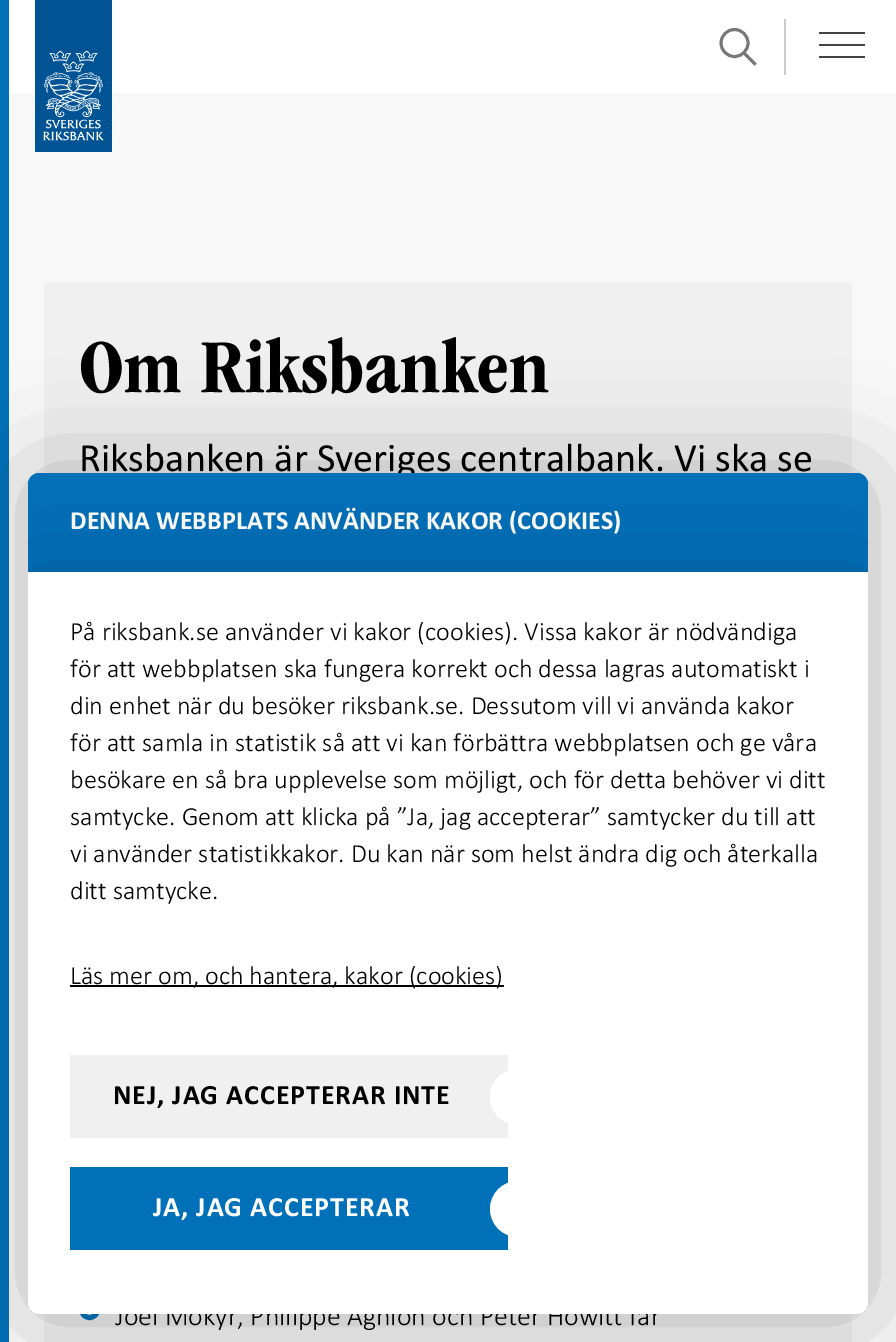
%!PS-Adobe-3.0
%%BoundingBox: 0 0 896 1342
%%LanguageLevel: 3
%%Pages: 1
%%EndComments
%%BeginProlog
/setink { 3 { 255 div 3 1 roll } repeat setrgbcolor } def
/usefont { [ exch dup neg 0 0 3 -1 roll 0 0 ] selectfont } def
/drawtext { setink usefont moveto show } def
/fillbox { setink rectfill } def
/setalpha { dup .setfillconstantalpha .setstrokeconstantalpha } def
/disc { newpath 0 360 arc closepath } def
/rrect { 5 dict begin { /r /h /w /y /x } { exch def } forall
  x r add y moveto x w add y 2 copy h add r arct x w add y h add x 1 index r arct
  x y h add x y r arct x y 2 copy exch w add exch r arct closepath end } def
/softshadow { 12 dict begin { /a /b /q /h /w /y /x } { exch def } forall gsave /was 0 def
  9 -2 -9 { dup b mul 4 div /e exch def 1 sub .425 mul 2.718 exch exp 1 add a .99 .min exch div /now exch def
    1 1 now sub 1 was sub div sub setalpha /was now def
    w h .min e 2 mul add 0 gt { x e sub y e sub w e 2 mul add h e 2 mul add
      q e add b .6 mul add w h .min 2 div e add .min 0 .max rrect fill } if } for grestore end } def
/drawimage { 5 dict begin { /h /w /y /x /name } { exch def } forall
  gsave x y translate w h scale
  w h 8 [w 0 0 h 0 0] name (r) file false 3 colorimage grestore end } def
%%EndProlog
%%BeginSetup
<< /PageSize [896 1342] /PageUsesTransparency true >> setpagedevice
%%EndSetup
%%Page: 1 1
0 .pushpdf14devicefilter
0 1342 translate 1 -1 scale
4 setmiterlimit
0 0 896 1342 248 248 248 fillbox
0 0 9 1342 0 113 185 fillbox
9 0 887 93 255 255 255 fillbox
35 0 77 152 1 83 148 fillbox
(assets/img1.rgb) 43 50 61 91 drawimage
119 119 119 setink
2.9 setlinewidth
734.5 43 13.5 disc stroke
2 setlinecap
744 53 moveto 754.5 63.5 lineto stroke
784 19 2 56 204 204 204 fillbox
819 44 46 2 68 68 68 fillbox
819 32 46 2 68 68 68 fillbox
819 56 46 2 68 68 68 fillbox
44 282 808 191 240 240 240 fillbox
(Om Riksbanken) 79 392 /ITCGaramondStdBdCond-Regular 78.75 0 0 0 drawtext
(Riksbanken är Sveriges centralbank. Vi ska se) 79 471 /Calibri-Regular 40.25 0 0 0 drawtext
44 1314 808 28 240 240 240 fillbox
0 113 185 setink
5 setlinewidth
0 setlinecap
89.5 1309.5 8 disc stroke
(Joel Mokyr, Philippe Aghion och Peter Howitt får) 115 1325 /Calibri-Light 28 0 0 0 drawtext
28 473 840 841 11 52.5 0.25 softshadow
2 113 186 setink
39 473 moveto 857 473 lineto 863 473 868 478 868 484 curveto 868 572 lineto 28 572 lineto 28 484 lineto 28 478 33 473 39 473 curveto closepath fill
(DENNA WEBBPLATS ANVÄNDER KAKOR \(COOKIES\)) 70 529 /Calibri-Bold 26.25 255 255 255 drawtext
gsave
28 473 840 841 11 rrect clip newpath
0 0 0 setink
28 572 840 742 0 52.5 0.2 softshadow
grestore
28 572 moveto 868 572 lineto 868 1303 lineto 868 1309 863 1314 857 1314 curveto 39 1314 lineto 33 1314 28 1309 28 1303 curveto closepath fill
(På riksbank.se använder vi kakor \(cookies\). Vissa kakor är nödvändiga) 70 640 /Calibri-Light 26.25 0 0 0 drawtext
(för att webbplatsen ska fungera korrekt och dessa lagras automatiskt i) 70 677 /Calibri-Light 26.25 0 0 0 drawtext
(din enhet när du besöker riksbank.se. Dessutom vill vi använda kakor) 70 714 /Calibri-Light 26.25 0 0 0 drawtext
(för att samla in statistik så att vi kan förbättra webbplatsen och ge våra) 70 751 /Calibri-Light 26.25 0 0 0 drawtext
(besökare en så bra upplevelse som möjligt, och för detta behöver vi ditt) 70 788 /Calibri-Light 26.25 0 0 0 drawtext
(samtycke. Genom att klicka på ”Ja, jag accepterar” samtycker du till att) 70 825 /Calibri-Light 26.25 0 0 0 drawtext
(vi använder statistikkakor. Du kan när som helst ändra dig och återkalla) 70 862 /Calibri-Light 26.25 0 0 0 drawtext
(ditt samtycke.) 70 899 /Calibri-Light 26.25 0 0 0 drawtext
70 985 434 2 0 0 0 fillbox
(Läs mer om, och hantera, kakor \(cookies\)) 70 984 /Calibri-Light 26.25 0 0 0 drawtext
70 1055 438 83 240 240 240 fillbox
/Calibri-Bold 28 usefont
0 0 0 setink
113 1104 moveto 0.9 0 (NEJ, JAG ACCEPTERAR INTE) ashow
255 255 255 setink
518 1097 27 disc gsave fill grestore
2 setlinewidth
stroke
70 1167 438 83 0 113 185 fillbox
255 255 255 setink
153 1216 moveto 0.9 0 (JA, JAG ACCEPTERAR) ashow
518 1209 27 disc gsave fill grestore
stroke
.poppdf14devicefilter showpage
%%EOF
